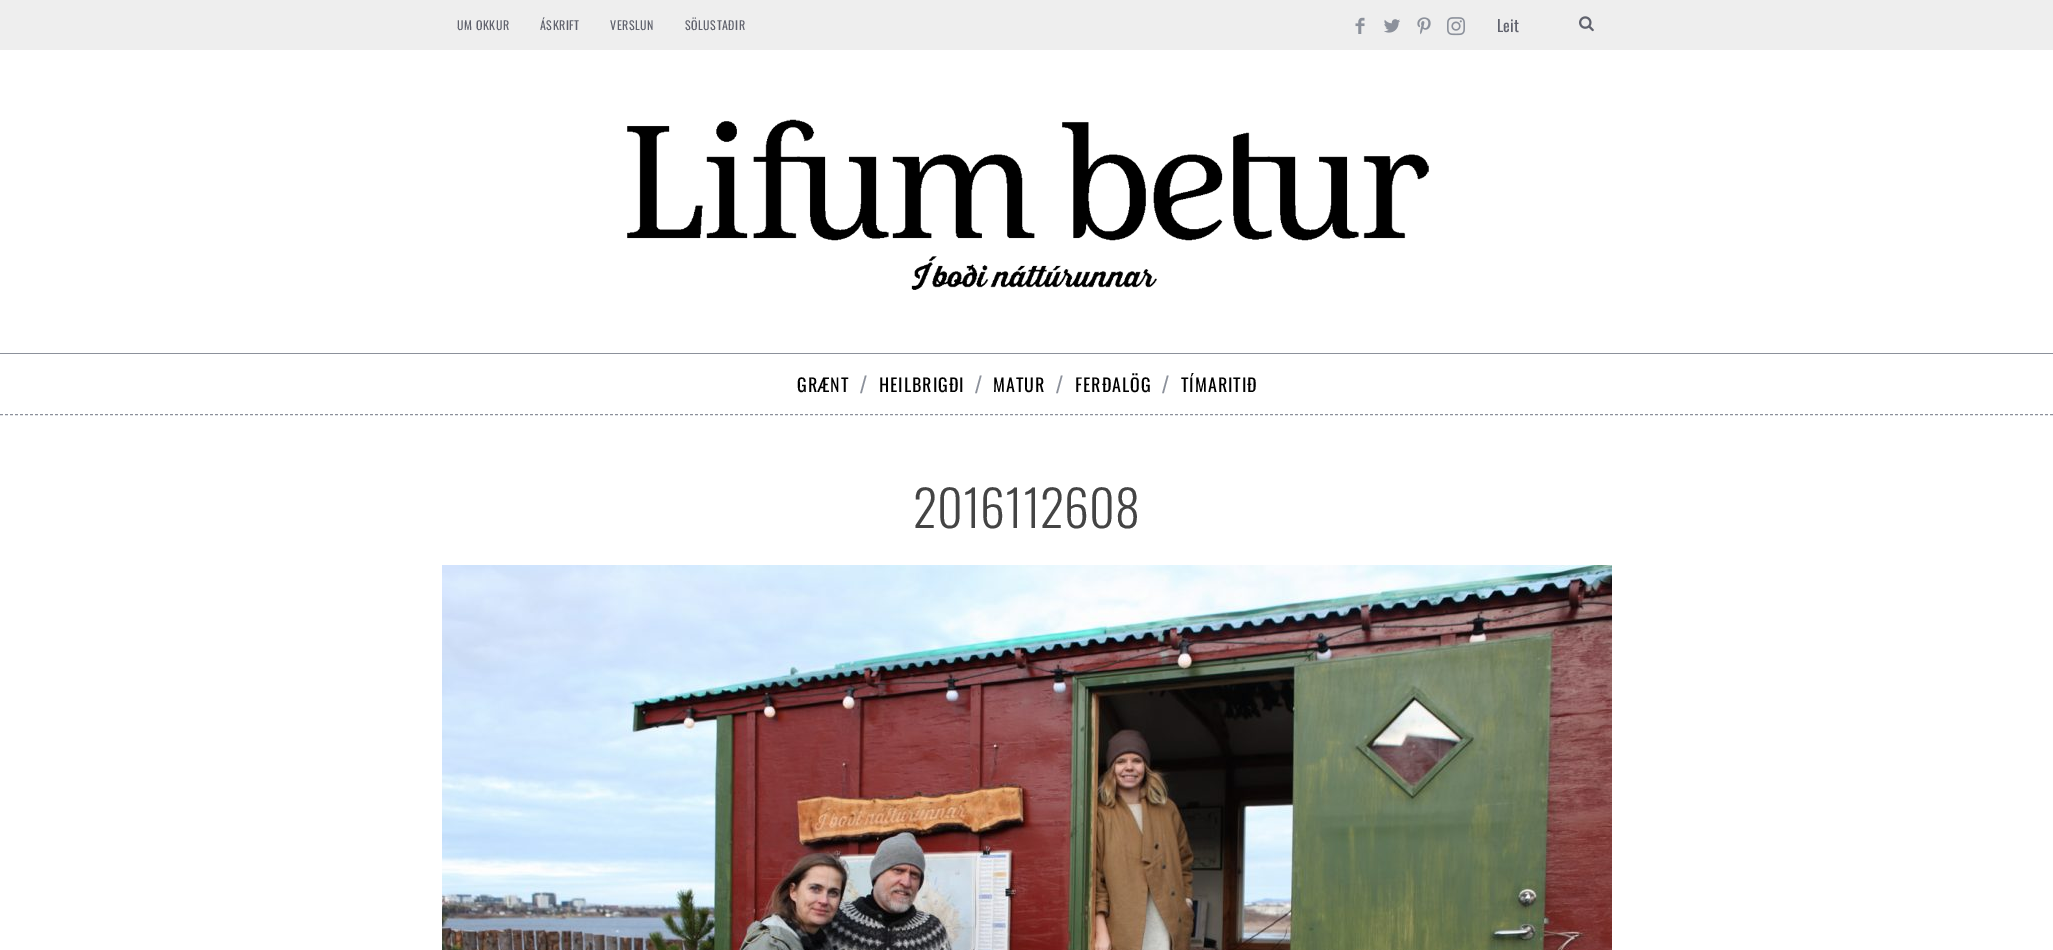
%!PS-Adobe-3.0
%%BoundingBox: 0 0 2053 950
%%LanguageLevel: 3
%%Pages: 1
%%EndComments
%%BeginProlog
/setink { 3 { 255 div 3 1 roll } repeat setrgbcolor } def
/usefont { [ exch dup neg 0 0 3 -1 roll 0 0 ] selectfont } def
/drawtext { setink usefont moveto show } def
/fillbox { setink rectfill } def
/drawimage { 5 dict begin { /h /w /y /x /name } { exch def } forall
  gsave x y translate w h scale
  w h 8 [w 0 0 h 0 0] name (r) file false 3 colorimage grestore end } def
%%EndProlog
%%BeginSetup
<< /PageSize [2053 950] >> setpagedevice
%%EndSetup
%%Page: 1 1
0 950 translate 1 -1 scale
4 setmiterlimit
0 0 2053 950 255 255 255 fillbox
0 0 2053 50 238 238 238 fillbox
/Oswald-Regular 12 usefont
96 98 109 setink
457 30 moveto 0.5 0 (UM OKKUR) ashow
540 30 moveto 0.5 0 (ÁSKRIFT) ashow
610 30 moveto 0.5 0 (VERSLUN) ashow
685 30 moveto 0.5 0 (SÖLUSTAÐIR) ashow
(assets/img1.rgb) 1355 17 10 17 drawimage
(assets/img2.rgb) 1384 19 16 14 drawimage
(assets/img3.rgb) 1417 17 14 18 drawimage
(assets/img4.rgb) 1447 17 18 19 drawimage
(Leit) 1497 32 /Oswald-Regular 16 96 98 109 drawtext
(assets/img5.rgb) 1579 16 15 16 drawimage
(assets/img6.rgb) 627 119 802 171 drawimage
0 353 2053 1 140 145 155 fillbox
[3 2] 0 setdash
0 414.5 moveto 2053 414.5 lineto stroke
/Oswald-Regular 18 usefont
0 0 0 setink
797 392 moveto 1 0 (GRÆNT) ashow
/LiberationSans-Regular 24 usefont
140 145 155 setink
860 393 moveto 1 0 (/) ashow
/Oswald-Regular 18 usefont
0 0 0 setink
879 392 moveto 1 0 (HEILBRIGÐI) ashow
/LiberationSans-Regular 24 usefont
140 145 155 setink
975 393 moveto 1 0 (/) ashow
/Oswald-Regular 18 usefont
0 0 0 setink
993 392 moveto 1 0 (MATUR) ashow
/LiberationSans-Regular 24 usefont
140 145 155 setink
1056 393 moveto 1 0 (/) ashow
/Oswald-Regular 18 usefont
0 0 0 setink
1075 392 moveto 1 0 (FERÐALÖG) ashow
/LiberationSans-Regular 24 usefont
140 145 155 setink
1162 393 moveto 1 0 (/) ashow
/Oswald-Regular 18 usefont
0 0 0 setink
1181 392 moveto 1 0 (TÍMARITIÐ) ashow
(2016112608) 913 528 /Oswald-Light 50 68 68 68 drawtext
(assets/img7.rgb) 442 565 1170 385 drawimage
showpage
%%EOF
